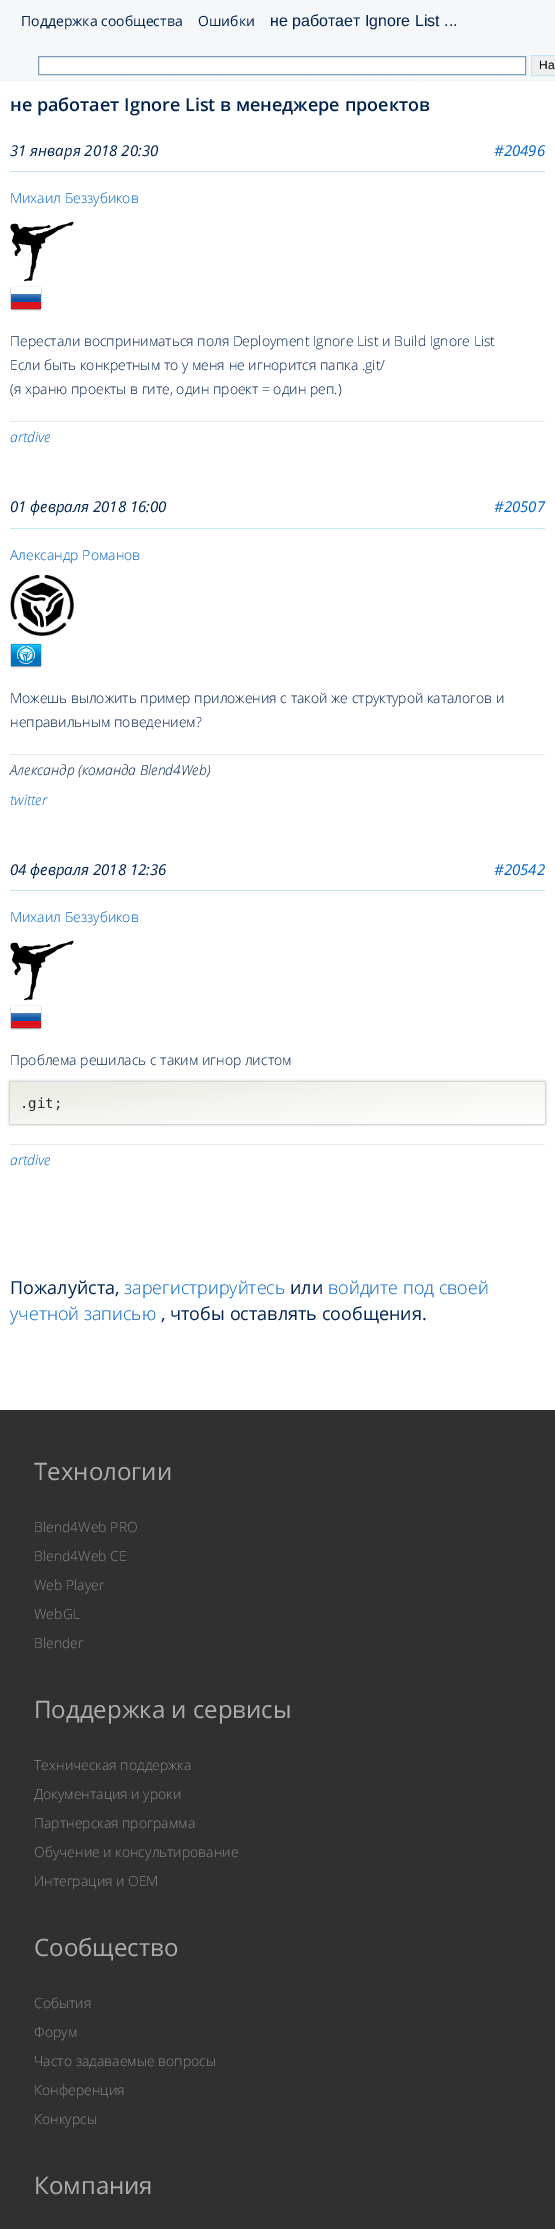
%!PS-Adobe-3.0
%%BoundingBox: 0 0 555 2229
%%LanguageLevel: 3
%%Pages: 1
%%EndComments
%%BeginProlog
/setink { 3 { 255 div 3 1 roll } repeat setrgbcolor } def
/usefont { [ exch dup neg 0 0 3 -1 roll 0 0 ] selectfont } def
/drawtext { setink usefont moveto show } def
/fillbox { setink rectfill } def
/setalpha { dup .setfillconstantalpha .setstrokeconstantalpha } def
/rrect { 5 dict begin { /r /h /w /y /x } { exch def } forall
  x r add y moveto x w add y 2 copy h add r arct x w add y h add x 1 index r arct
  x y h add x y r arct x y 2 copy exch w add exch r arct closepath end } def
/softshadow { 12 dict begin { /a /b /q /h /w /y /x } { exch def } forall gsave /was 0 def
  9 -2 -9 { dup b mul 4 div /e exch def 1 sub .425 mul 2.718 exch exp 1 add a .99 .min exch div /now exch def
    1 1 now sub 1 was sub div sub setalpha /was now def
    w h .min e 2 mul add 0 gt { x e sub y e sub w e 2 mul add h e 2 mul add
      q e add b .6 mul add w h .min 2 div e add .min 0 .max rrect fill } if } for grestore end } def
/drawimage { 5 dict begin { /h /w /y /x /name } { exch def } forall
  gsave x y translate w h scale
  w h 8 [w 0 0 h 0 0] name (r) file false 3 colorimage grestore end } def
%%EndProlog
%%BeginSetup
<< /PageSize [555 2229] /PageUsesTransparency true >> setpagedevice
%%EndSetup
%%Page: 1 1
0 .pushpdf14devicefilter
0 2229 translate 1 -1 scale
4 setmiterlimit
0 0 555 2229 255 255 255 fillbox
(assets/img1.rgb) 0 0 555 82 drawimage
(Поддержка сообщества) 21 26 /OpenSans-Regular 14 0 35 80 drawtext
(Ошибки) 198 26 /OpenSans-Regular 14 0 35 80 drawtext
(не работает Ignore List ...) 270 26 /Arimo-Regular 16 0 35 80 drawtext
255 255 255 setink
38.5 56.5 moveto 525.5 56.5 lineto 525.5 74.5 lineto 38.5 74.5 lineto closepath gsave fill grestore
127 157 185 setink
stroke
239 239 239 setink
531.5 55.5 moveto 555.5 55.5 lineto 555.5 75.5 lineto 531.5 75.5 lineto closepath gsave fill grestore
196 231 245 setink
stroke
(На) 539 69 /LiberationSans-Regular 12 0 0 0 drawtext
(не работает Ignore List в менеджере проектов) 10 111 /OpenSans-SemiBold 18 0 35 80 drawtext
10 171 535 1 196 231 245 fillbox
(31 января 2018 20:30) 10 156 /OpenSans-Italic 15 0 35 80 drawtext
(#20496) 494 156 /OpenSans-Italic 15 0 100 200 drawtext
(Михаил Беззубиков) 10 203 /OpenSans-Light 14 0 100 200 drawtext
(assets/img2.rgb) 10 221 64 61 drawimage
(assets/img3.rgb) 10 286 32 25 drawimage
(Перестали восприниматься поля Deployment Ignore List и Build Ignore List) 10 346 /OpenSans-Light 14 0 35 80 drawtext
(Если быть конкретным то у меня не игнорится папка .git/) 10 370 /OpenSans-Light 14 0 35 80 drawtext
(\(я храню проекты в гите, один проект = один реп.\)) 10 394 /OpenSans-Light 14 0 35 80 drawtext
10 421 535 1 230 233 238 fillbox
(artdive) 10 442 /OpenSans-LightItalic 14 0 100 200 drawtext
10 528 535 1 196 231 245 fillbox
(01 февраля 2018 16:00) 10 512 /OpenSans-Italic 15 0 35 80 drawtext
(#20507) 494 512 /OpenSans-Italic 15 0 100 200 drawtext
(Александр Романов) 10 560 /OpenSans-Light 14 0 100 200 drawtext
(assets/img4.rgb) 10 575 64 61 drawimage
(assets/img5.rgb) 10 643 32 25 drawimage
(Можешь выложить пример приложения с такой же структурой каталогов и) 10 703 /OpenSans-Light 14 0 35 80 drawtext
(неправильным поведением?) 10 727 /OpenSans-Light 14 0 35 80 drawtext
10 754 535 1 230 233 238 fillbox
(Александр \(команда Blend4Web\)) 10 775 /OpenSans-LightItalic 14 0 35 80 drawtext
(twitter) 10 805 /OpenSans-LightItalic 14 0 100 200 drawtext
10 890 535 1 196 231 245 fillbox
(04 февраля 2018 12:36) 10 875 /OpenSans-Italic 15 0 35 80 drawtext
(#20542) 494 875 /OpenSans-Italic 15 0 100 200 drawtext
(Михаил Беззубиков) 10 922 /OpenSans-Light 14 0 100 200 drawtext
(assets/img2.rgb) 10 940 64 61 drawimage
(assets/img3.rgb) 10 1005 32 25 drawimage
(Проблема решилась с таким игнор листом) 10 1065 /OpenSans-Light 14 0 35 80 drawtext
153 153 153 setink
10 1082 535 42 0 1.5 1 softshadow
gsave 10 1082 moveto 545 1082 lineto 545 1124 lineto 10 1124 lineto closepath clip newpath
<< /ShadingType 2 /ColorSpace /DeviceRGB /Coords [274 1061 281 1145] /Extend [true true] /Function << /FunctionType 2 /Domain [0 1] /C0 [0.922 0.922 0.894] /C1 [1 1 1] /N 1 >> >> shfill grestore
(.git;) 20 1108 /DejaVuSansMono-Regular 14 48 48 47 drawtext
10 1144 535 1 230 233 238 fillbox
(artdive) 10 1165 /OpenSans-LightItalic 14 0 100 200 drawtext
(Пожалуйста,) 10 1294 /OpenSans-Regular 18 0 35 80 drawtext
(зарегистрируйтесь) 124 1294 /OpenSans-Light 18 0 100 200 drawtext
(или) 290 1294 /OpenSans-Regular 18 0 35 80 drawtext
(войдите под своей) 328 1294 /OpenSans-Light 18 0 100 200 drawtext
(учетной записью) 10 1320 /OpenSans-Light 18 0 100 200 drawtext
(, чтобы оставлять сообщения.) 161 1320 /OpenSans-Regular 18 0 35 80 drawtext
0 1410 555 819 48 48 48 fillbox
(Технологии) 34 1480 /OpenSans-Regular 24 172 172 172 drawtext
(Blend4Web PRO) 34 1532 /OpenSans-Light 14 134 134 134 drawtext
(Blend4Web CE) 34 1561 /OpenSans-Light 14 134 134 134 drawtext
(Web Player) 34 1590 /OpenSans-Light 14 134 134 134 drawtext
(WebGL) 34 1619 /OpenSans-Light 14 134 134 134 drawtext
(Blender) 34 1648 /OpenSans-Light 14 134 134 134 drawtext
(Поддержка и сервисы) 34 1718 /OpenSans-Regular 24 172 172 172 drawtext
(Техническая поддержка) 34 1770 /OpenSans-Light 14 134 134 134 drawtext
(Документация и уроки) 34 1799 /OpenSans-Light 14 134 134 134 drawtext
(Партнерская программа) 34 1828 /OpenSans-Light 14 134 134 134 drawtext
(Обучение и консультирование) 34 1857 /OpenSans-Light 14 134 134 134 drawtext
(Интеграция и OEM) 34 1886 /OpenSans-Light 14 134 134 134 drawtext
(Сообщество) 34 1956 /OpenSans-Regular 24 172 172 172 drawtext
(События) 34 2008 /OpenSans-Light 14 134 134 134 drawtext
(Форум) 34 2037 /OpenSans-Light 14 134 134 134 drawtext
(Часто задаваемые вопросы) 34 2066 /OpenSans-Light 14 134 134 134 drawtext
(Конференция) 34 2095 /OpenSans-Light 14 134 134 134 drawtext
(Конкурсы) 34 2124 /OpenSans-Light 14 134 134 134 drawtext
(Компания) 34 2194 /OpenSans-Regular 24 172 172 172 drawtext
.poppdf14devicefilter showpage
%%EOF
